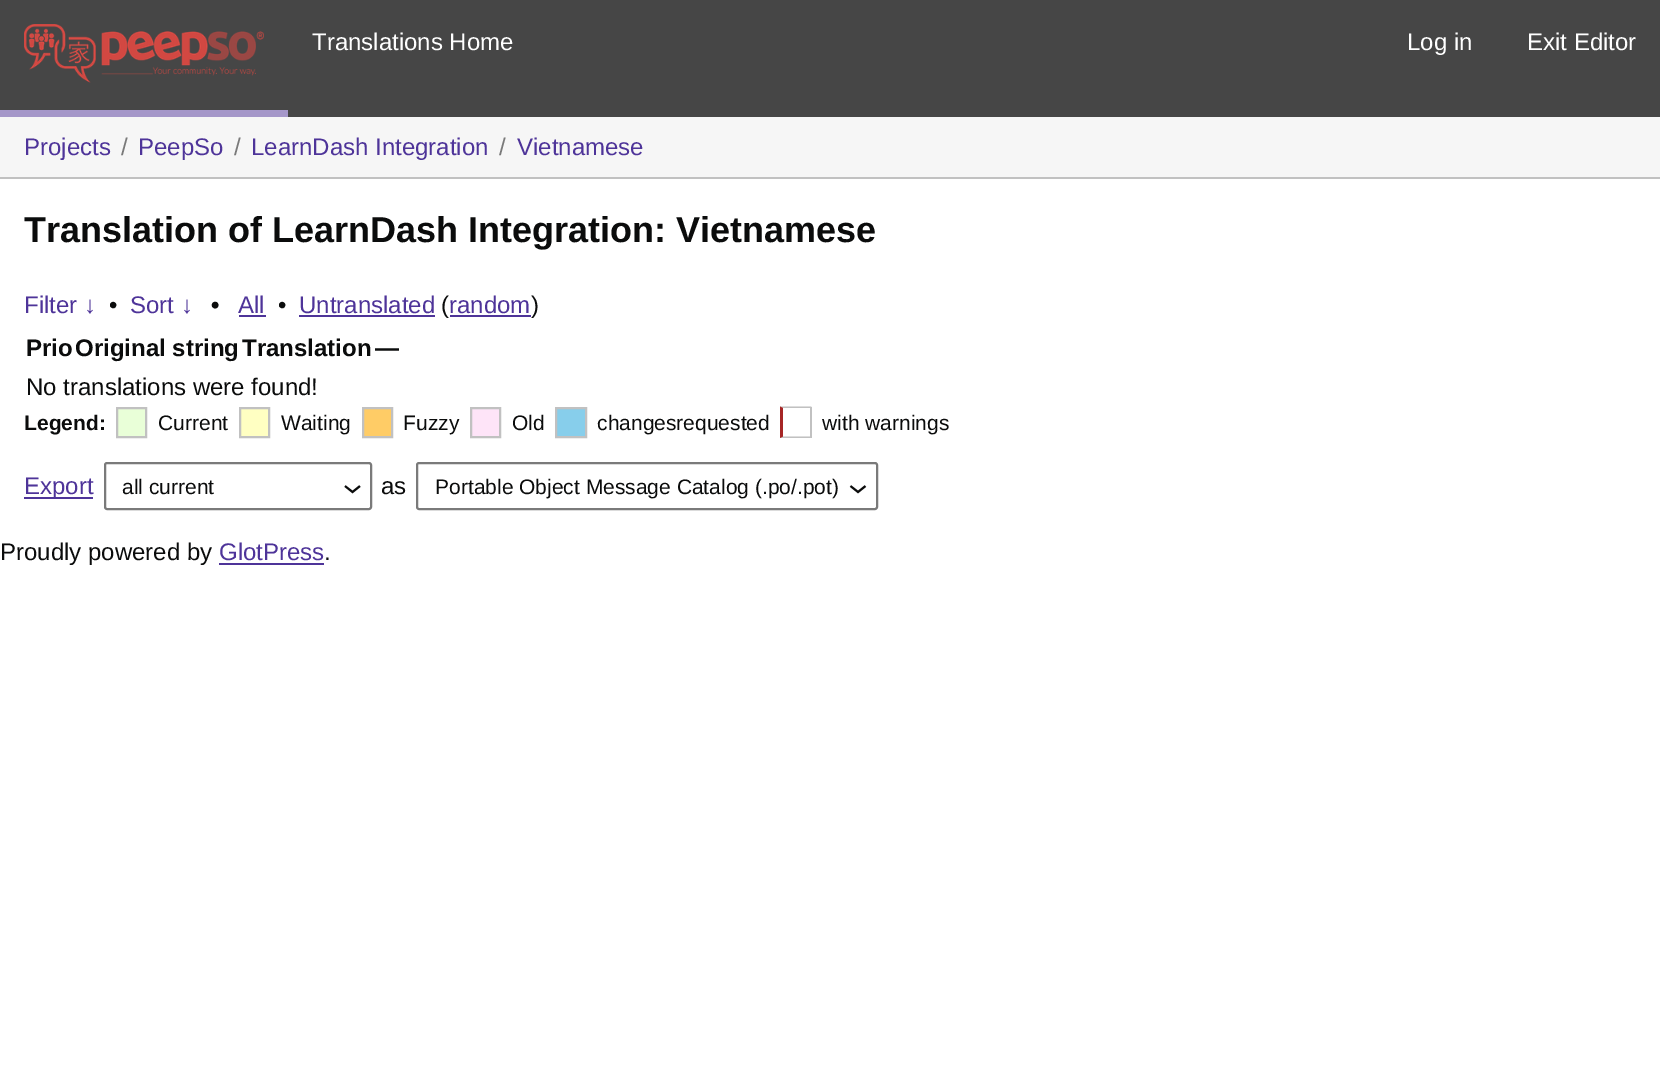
%!PS-Adobe-3.0
%%BoundingBox: 0 0 1660 1067
%%LanguageLevel: 3
%%Pages: 1
%%EndComments
%%BeginProlog
/setink { 3 { 255 div 3 1 roll } repeat setrgbcolor } def
/usefont { [ exch dup neg 0 0 3 -1 roll 0 0 ] selectfont } def
/drawtext { setink usefont moveto show } def
/fillbox { setink rectfill } def
/rrect { 5 dict begin { /r /h /w /y /x } { exch def } forall
  x r add y moveto x w add y 2 copy h add r arct x w add y h add x 1 index r arct
  x y h add x y r arct x y 2 copy exch w add exch r arct closepath end } def
/drawimage { 5 dict begin { /h /w /y /x /name } { exch def } forall
  gsave x y translate w h scale
  w h 8 [w 0 0 h 0 0] name (r) file false 3 colorimage grestore end } def
%%EndProlog
%%BeginSetup
<< /PageSize [1660 1067] >> setpagedevice
%%EndSetup
%%Page: 1 1
0 1067 translate 1 -1 scale
4 setmiterlimit
0 0 1660 1067 255 255 255 fillbox
0 0 1660 117 70 70 70 fillbox
0 110 288 7 165 151 201 fillbox
(assets/img1.rgb) 24 24 240 59 drawimage
(Translations Home) 312 50 /LiberationSans-Regular 24 255 255 255 drawtext
(Log in) 1407 50 /LiberationSans-Regular 24 255 255 255 drawtext
(Exit Editor) 1527 50 /LiberationSans-Regular 24 255 255 255 drawtext
0 117 1660 60 246 246 246 fillbox
0 177 1660 2 193 193 193 fillbox
(Projects) 24 155 /LiberationSans-Regular 24 78 52 153 drawtext
(/) 121 155 /LiberationSans-Regular 24 122 122 122 drawtext
(PeepSo) 138 155 /LiberationSans-Regular 24 78 52 153 drawtext
(/) 234 155 /LiberationSans-Regular 24 122 122 122 drawtext
(LearnDash Integration) 251 155 /LiberationSans-Regular 24 78 52 153 drawtext
(/) 499 155 /LiberationSans-Regular 24 122 122 122 drawtext
(Vietnamese) 517 155 /LiberationSans-Regular 24 78 52 153 drawtext
(Translation of LearnDash Integration: Vietnamese) 24 242 /LiberationSans-Bold 36 11 12 12 drawtext
(Filter ↓) 24 313 /LiberationSans-Regular 24 78 52 153 drawtext
(•) 109 313 /LiberationSans-Regular 24 11 12 12 drawtext
(Sort ↓) 130 313 /LiberationSans-Regular 24 78 52 153 drawtext
(•) 211 313 /LiberationSans-Bold 24 11 12 12 drawtext
(All) 238 313 /LiberationSans-Regular 24 78 52 153 drawtext
239 315 27 2 78 52 153 fillbox
(•) 278 313 /LiberationSans-Regular 24 11 12 12 drawtext
(Untranslated) 299 313 /LiberationSans-Regular 24 78 52 153 drawtext
299 315 136 2 78 52 153 fillbox
(\() 441 313 /LiberationSans-Regular 24 11 12 12 drawtext
(random) 449 313 /LiberationSans-Regular 24 78 52 153 drawtext
450 315 81 2 78 52 153 fillbox
(\)) 531 313 /LiberationSans-Regular 24 11 12 12 drawtext
(Prio) 26 356 /LiberationSans-Bold 24 11 12 12 drawtext
(Original string) 75 356 /LiberationSans-Bold 24 11 12 12 drawtext
(Translation) 242 356 /LiberationSans-Bold 24 11 12 12 drawtext
(—) 375 356 /LiberationSans-Bold 24 11 12 12 drawtext
(No translations were found!) 26 395 /LiberationSans-Regular 24 11 12 12 drawtext
(Legend:) 24 430 /LiberationSans-Bold 21 11 12 12 drawtext
233 255 216 setink
117 408 moveto 146 408 lineto 146 437 lineto 117 437 lineto closepath gsave fill grestore
193 193 193 setink
2 setlinewidth
stroke
(Current) 158 430 /LiberationSans-Regular 21 11 12 12 drawtext
255 255 194 setink
240 408 moveto 269 408 lineto 269 437 lineto 240 437 lineto closepath gsave fill grestore
193 193 193 setink
stroke
(Waiting) 281 430 /LiberationSans-Regular 21 11 12 12 drawtext
255 204 102 setink
363 408 moveto 392 408 lineto 392 437 lineto 363 437 lineto closepath gsave fill grestore
193 193 193 setink
stroke
(Fuzzy) 403 430 /LiberationSans-Regular 21 11 12 12 drawtext
254 228 248 setink
471 408 moveto 500 408 lineto 500 437 lineto 471 437 lineto closepath gsave fill grestore
193 193 193 setink
stroke
(Old) 512 430 /LiberationSans-Regular 21 11 12 12 drawtext
135 206 235 setink
556 408 moveto 586 408 lineto 586 437 lineto 556 437 lineto closepath gsave fill grestore
193 193 193 setink
stroke
(changesrequested) 597 430 /LiberationSans-Regular 21 11 12 12 drawtext
193 193 193 setink
780 406.5 moveto 811.5 406.5 lineto 810 408 lineto 783 408 lineto closepath fill
810 407 2 31 193 193 193 fillbox
811.5 438 moveto 780 438 lineto 783 436.5 lineto 810 436.5 lineto closepath fill
166 38 38 setink
780 438 moveto 780 406.5 lineto 783 408 lineto 783 436.5 lineto closepath fill
(with warnings) 822 430 /LiberationSans-Regular 21 11 12 12 drawtext
24 497 69 2 78 52 153 fillbox
(Export) 24 494 /LiberationSans-Regular 24 78 52 153 drawtext
(assets/img2.rgb) 344 485 17 9 drawimage
122 122 122 setink
105 463 266 46 2 rrect stroke
(all current) 122 494 /LiberationSans-Regular 21 11 12 12 drawtext
(as) 381 494 /LiberationSans-Regular 24 11 12 12 drawtext
(assets/img3.rgb) 849 485 18 9 drawimage
122 122 122 setink
417 463 460 46 2 rrect stroke
(Portable Object Message Catalog \(.po/.pot\)) 435 494 /LiberationSans-Regular 21 11 12 12 drawtext
(Proudly powered by) 0 560 /LiberationSans-Regular 24 11 12 12 drawtext
(GlotPress) 219 560 /LiberationSans-Regular 24 78 52 153 drawtext
219 563 105 2 78 52 153 fillbox
(.) 324 560 /LiberationSans-Regular 24 11 12 12 drawtext
showpage
%%EOF
